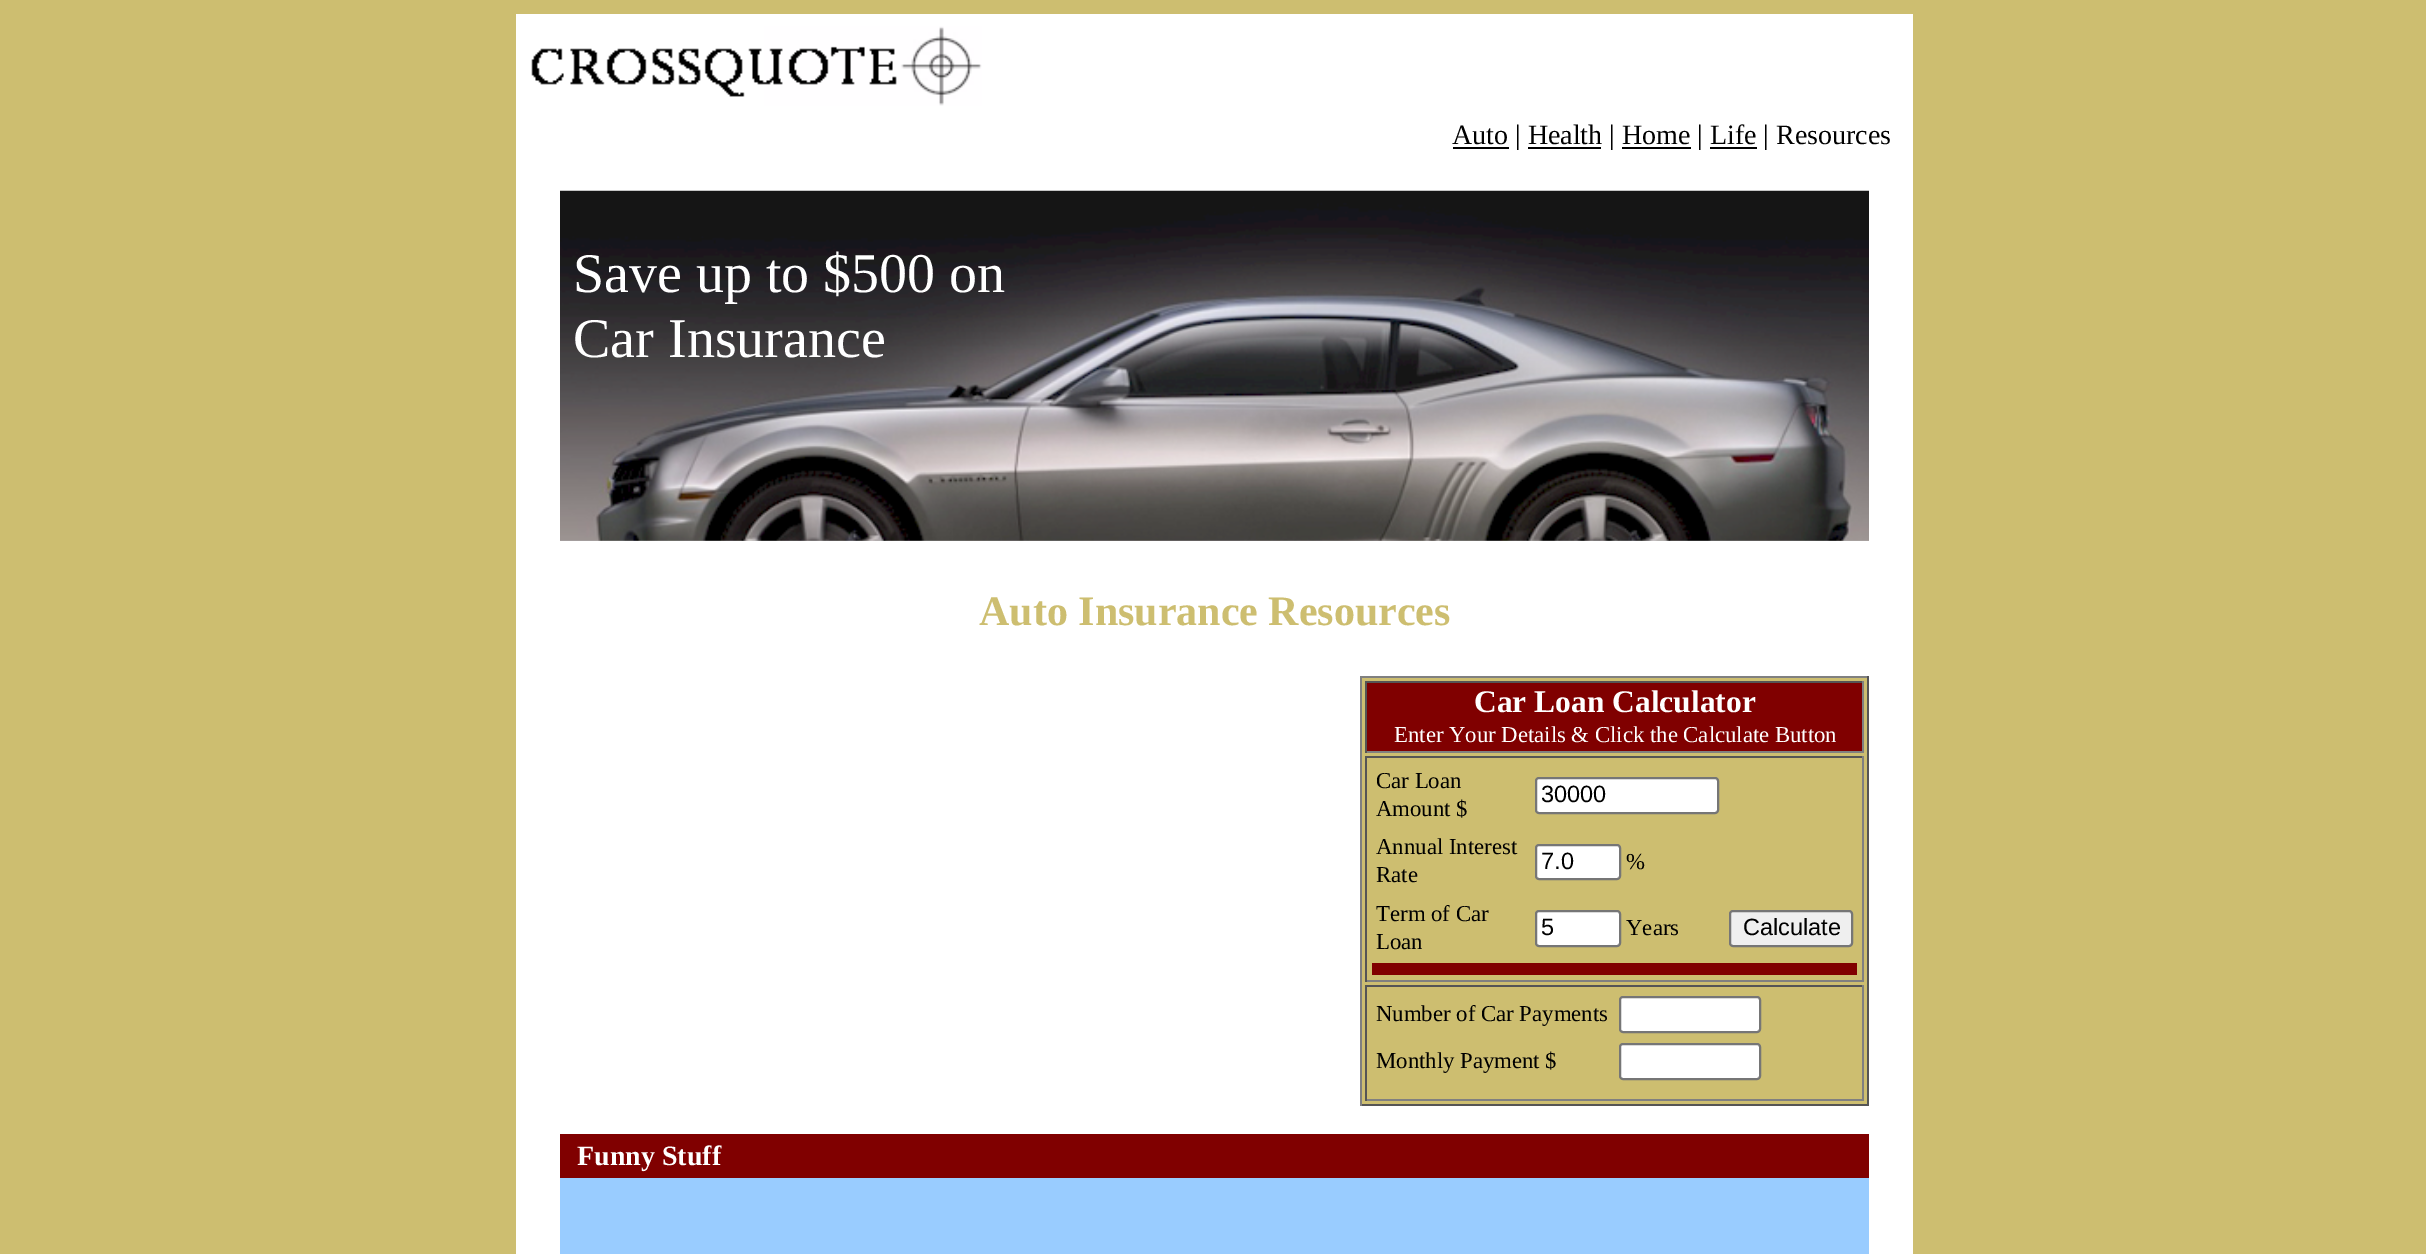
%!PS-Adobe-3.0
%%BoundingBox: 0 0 2426 1254
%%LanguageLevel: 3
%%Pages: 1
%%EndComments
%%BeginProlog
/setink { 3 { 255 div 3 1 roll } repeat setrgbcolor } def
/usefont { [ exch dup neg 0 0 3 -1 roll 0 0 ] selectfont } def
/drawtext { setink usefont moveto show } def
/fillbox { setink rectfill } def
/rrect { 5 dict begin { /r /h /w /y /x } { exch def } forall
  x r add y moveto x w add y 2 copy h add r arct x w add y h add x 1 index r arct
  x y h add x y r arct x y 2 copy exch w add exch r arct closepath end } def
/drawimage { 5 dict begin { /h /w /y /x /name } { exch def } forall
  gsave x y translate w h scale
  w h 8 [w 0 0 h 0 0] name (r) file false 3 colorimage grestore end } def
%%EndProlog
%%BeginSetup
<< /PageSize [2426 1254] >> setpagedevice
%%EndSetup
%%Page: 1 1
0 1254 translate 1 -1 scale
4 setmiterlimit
0 0 2426 1254 205 190 112 fillbox
516 14 1397 1240 255 255 255 fillbox
(assets/img1.rgb) 531 26 451 80 drawimage
1453 147 56 2 0 0 0 fillbox
(Auto | Health | Home | Life | Resources) 1452 144 /LiberationSerif-Regular 28 0 0 0 drawtext
1528 147 73 2 0 0 0 fillbox
1622 147 69 2 0 0 0 fillbox
1710 147 47 2 0 0 0 fillbox
(assets/img2.rgb) 560 190 1309 351 drawimage
(Save up to $500 on) 573 292 /LiberationSerif-Regular 56 255 255 255 drawtext
(Car Insurance) 573 357 /LiberationSerif-Regular 56 255 255 255 drawtext
(Auto Insurance Resources) 979 625 /LiberationSerif-Bold 42 205 190 112 drawtext
1362 678 505 426 205 190 112 fillbox
1360 676 509 2 128 128 128 fillbox
1867 676 2 430 85 85 85 fillbox
1360 1104 509 2 85 85 85 fillbox
1360 676 2 430 128 128 128 fillbox
1367 683 495 68 128 0 0 fillbox
1365 681 499 2 85 85 85 fillbox
1862 681 2 72 128 128 128 fillbox
1365 751 499 2 128 128 128 fillbox
1365 681 2 72 85 85 85 fillbox
(Car Loan Calculator) 1474 712 /LiberationSerif-Bold 31.5 255 255 255 drawtext
(Enter Your Details & Click the Calculate Button) 1394 742 /LiberationSerif-Regular 22.75 255 255 255 drawtext
1365 756 499 2 85 85 85 fillbox
1862 756 2 226 128 128 128 fillbox
1365 980 499 2 128 128 128 fillbox
1365 756 2 226 85 85 85 fillbox
(Car Loan) 1376 788 /LiberationSerif-Regular 22.75 0 0 0 drawtext
(Amount $) 1376 816 /LiberationSerif-Regular 22.75 0 0 0 drawtext
255 255 255 setink
1536 778 182 35 3 rrect gsave fill grestore
118 118 118 setink
2 setlinewidth
stroke
(30000) 1541 802 /LiberationSans-Regular 23.5 0 0 0 drawtext
(Annual Interest) 1376 854 /LiberationSerif-Regular 22.75 0 0 0 drawtext
(Rate) 1376 882 /LiberationSerif-Regular 22.75 0 0 0 drawtext
255 255 255 setink
1536 845 84 34 3 rrect gsave fill grestore
118 118 118 setink
stroke
(7.0) 1541 869 /LiberationSans-Regular 23.5 0 0 0 drawtext
(%) 1626 869 /LiberationSerif-Regular 22.75 0 0 0 drawtext
(Term of Car) 1376 921 /LiberationSerif-Regular 22.75 0 0 0 drawtext
(Loan) 1376 949 /LiberationSerif-Regular 22.75 0 0 0 drawtext
255 255 255 setink
1536 911 84 35 3 rrect gsave fill grestore
118 118 118 setink
stroke
(5) 1541 935 /LiberationSans-Regular 23.5 0 0 0 drawtext
(Years) 1626 935 /LiberationSerif-Regular 22.75 0 0 0 drawtext
239 239 239 setink
1730 911 122 35 3 rrect gsave fill grestore
118 118 118 setink
stroke
(Calculate) 1743 935 /LiberationSans-Regular 23.5 0 0 0 drawtext
1372 963 485 12 128 0 0 fillbox
1365 985 499 2 85 85 85 fillbox
1862 985 2 116 128 128 128 fillbox
1365 1099 499 2 128 128 128 fillbox
1365 985 2 116 85 85 85 fillbox
(Number of Car Payments) 1376 1021 /LiberationSerif-Regular 22.75 0 0 0 drawtext
255 255 255 setink
1620 997 140 35 3 rrect gsave fill grestore
118 118 118 setink
stroke
(Monthly Payment $) 1376 1068 /LiberationSerif-Regular 22.75 0 0 0 drawtext
255 255 255 setink
1620 1044 140 35 3 rrect gsave fill grestore
118 118 118 setink
stroke
560 1134 1309 44 128 0 0 fillbox
(Funny Stuff) 577 1165 /LiberationSerif-Bold 28 255 255 255 drawtext
560 1178 1309 31 153 204 255 fillbox
560 1209 1309 45 153 204 255 fillbox
showpage
%%EOF
